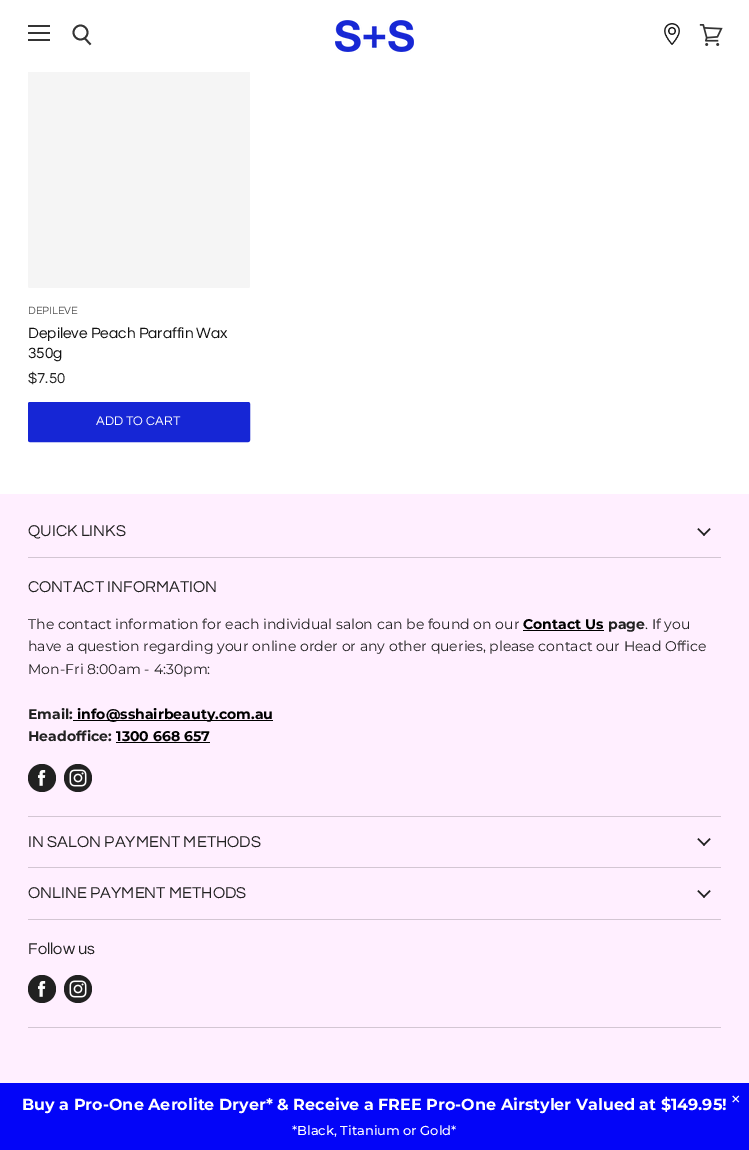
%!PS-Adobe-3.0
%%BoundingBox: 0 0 749 1150
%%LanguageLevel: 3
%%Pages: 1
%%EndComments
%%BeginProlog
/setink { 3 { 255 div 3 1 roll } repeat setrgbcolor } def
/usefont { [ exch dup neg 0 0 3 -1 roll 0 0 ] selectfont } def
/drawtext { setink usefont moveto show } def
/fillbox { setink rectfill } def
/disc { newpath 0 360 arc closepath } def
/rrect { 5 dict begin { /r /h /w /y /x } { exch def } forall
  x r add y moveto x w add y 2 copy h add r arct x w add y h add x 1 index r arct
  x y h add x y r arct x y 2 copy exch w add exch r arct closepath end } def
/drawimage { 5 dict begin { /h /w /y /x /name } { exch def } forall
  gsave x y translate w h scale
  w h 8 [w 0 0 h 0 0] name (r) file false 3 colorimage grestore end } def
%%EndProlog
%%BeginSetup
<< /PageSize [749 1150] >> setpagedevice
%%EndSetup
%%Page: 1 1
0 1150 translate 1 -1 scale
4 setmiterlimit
0 0 749 1150 255 255 255 fillbox
245 245 245 setink
28 66 222 222 2 rrect fill
28 66 222 6 255 255 255 fillbox
(assets/img1.rgb) 335 20 79 32 drawimage
28 25 22 2 52 52 52 fillbox
28 32 22 2 52 52 52 fillbox
28 39 22 2 52 52 52 fillbox
1.8 setlinewidth
90.5 44.5 moveto 84.5 38 lineto stroke
80.5 32.5 7 disc stroke
(assets/img2.rgb) 664 23 16 22 drawimage
(assets/img3.rgb) 699 24 24 22 drawimage
(DEPILEVE) 28 314 /Questrial-Regular 11 85 85 85 drawtext
(Depileve Peach Paraffin Wax) 28 338 /Questrial-Regular 15.4 17 17 17 drawtext
(350g) 28 358 /Questrial-Regular 15.4 17 17 17 drawtext
($7.50) 28 383 /Questrial-Regular 15 33 33 33 drawtext
22 38 213 setink
28.5 402.5 221 39 1.5 rrect gsave fill grestore
1 setlinewidth
stroke
/Questrial-Regular 13 usefont
255 255 255 setink
96 425 moveto 0.1 0 (ADD TO CART) ashow
0 494 749 589 255 239 255 fillbox
28 557 693 1 211 198 211 fillbox
(QUICK LINKS) 28 536 /Questrial-Regular 16.3 33 33 33 drawtext
(assets/img4.rgb) 697 528 14 8 drawimage
28 816 693 1 211 198 211 fillbox
(CONTACT INFORMATION) 28 592 /Questrial-Regular 16.3 33 33 33 drawtext
(The contact information for each individual salon can be found on our) 28 629 /Montserrat-Regular 14.05 33 33 33 drawtext
(Contact Us) 523 629 /Montserrat-Bold 14.05 0 0 0 drawtext
523 630 81 1 0 0 0 fillbox
(page) 608 629 /Montserrat-Bold 14.05 33 33 33 drawtext
(. If you) 645 629 /Montserrat-Regular 14.05 33 33 33 drawtext
(have a question regarding your online order or any other queries, please contact our Head Office) 28 651 /Montserrat-Regular 14.05 33 33 33 drawtext
(Mon-Fri 8:00am - 4:30pm:) 28 674 /Montserrat-Regular 14.05 33 33 33 drawtext
(Email:) 28 719 /Montserrat-Bold 14.05 33 33 33 drawtext
73 720 200 1 0 0 0 fillbox
(info@sshairbeauty.com.au) 77 719 /Montserrat-Bold 14.05 0 0 0 drawtext
(Headoffice:) 28 741 /Montserrat-Bold 14.05 33 33 33 drawtext
(1300 668 657) 116 741 /Montserrat-Bold 14.05 0 0 0 drawtext
116 742 94 1 0 0 0 fillbox
33 33 33 setink
42 778 14 disc fill
(assets/img5.rgb) 38 770 8 16 drawimage
78 778 14 disc fill
(assets/img6.rgb) 69 769 18 18 drawimage
28 867 693 1 211 198 211 fillbox
(IN SALON PAYMENT METHODS) 28 847 /Questrial-Regular 16.3 33 33 33 drawtext
(assets/img4.rgb) 697 838 14 8 drawimage
28 919 693 1 211 198 211 fillbox
(ONLINE PAYMENT METHODS) 28 898 /Questrial-Regular 16.3 33 33 33 drawtext
(assets/img4.rgb) 697 890 14 8 drawimage
28 1027 693 1 211 198 211 fillbox
(Follow us) 28 954 /Questrial-Regular 16.3 33 33 33 drawtext
42 989 14 disc fill
(assets/img5.rgb) 38 981 8 16 drawimage
78 989 14 disc fill
(assets/img6.rgb) 69 980 18 18 drawimage
0 1083 749 67 3 5 248 fillbox
(Buy a Pro-One Aerolite Dryer* & Receive a FREE Pro-One Airstyler Valued at $149.95!) 22 1110 /Montserrat-Bold 16 255 255 255 drawtext
(*Black, Titanium or Gold*) 292 1135 /Montserrat-Medium 13 255 255 255 drawtext
(×) 730 1106 /Montserrat-Regular 20 255 255 255 drawtext
showpage
%%EOF
